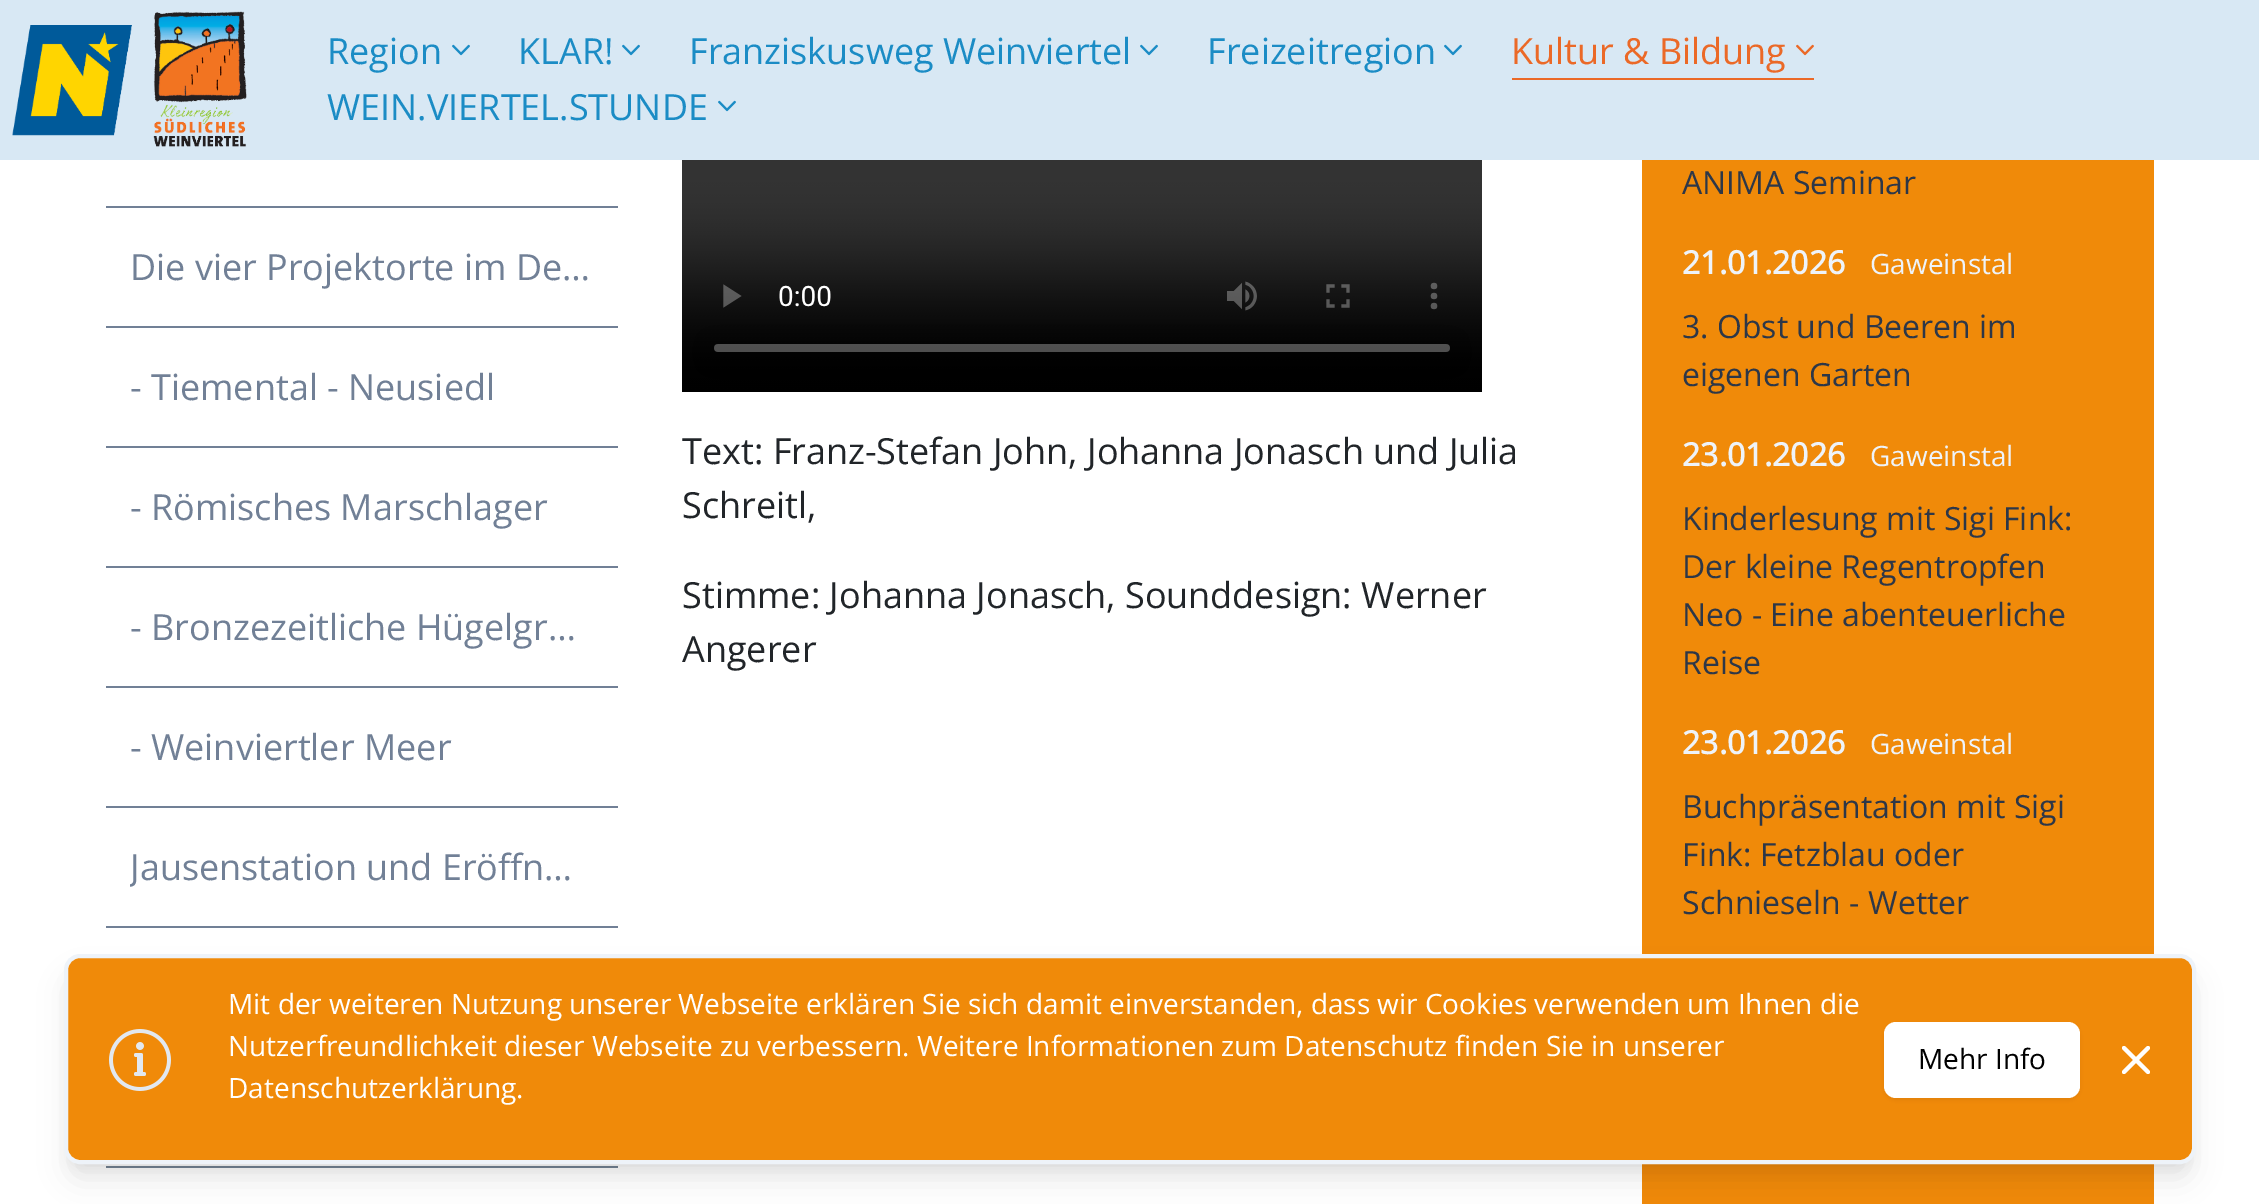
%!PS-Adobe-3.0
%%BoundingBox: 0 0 2259 1204
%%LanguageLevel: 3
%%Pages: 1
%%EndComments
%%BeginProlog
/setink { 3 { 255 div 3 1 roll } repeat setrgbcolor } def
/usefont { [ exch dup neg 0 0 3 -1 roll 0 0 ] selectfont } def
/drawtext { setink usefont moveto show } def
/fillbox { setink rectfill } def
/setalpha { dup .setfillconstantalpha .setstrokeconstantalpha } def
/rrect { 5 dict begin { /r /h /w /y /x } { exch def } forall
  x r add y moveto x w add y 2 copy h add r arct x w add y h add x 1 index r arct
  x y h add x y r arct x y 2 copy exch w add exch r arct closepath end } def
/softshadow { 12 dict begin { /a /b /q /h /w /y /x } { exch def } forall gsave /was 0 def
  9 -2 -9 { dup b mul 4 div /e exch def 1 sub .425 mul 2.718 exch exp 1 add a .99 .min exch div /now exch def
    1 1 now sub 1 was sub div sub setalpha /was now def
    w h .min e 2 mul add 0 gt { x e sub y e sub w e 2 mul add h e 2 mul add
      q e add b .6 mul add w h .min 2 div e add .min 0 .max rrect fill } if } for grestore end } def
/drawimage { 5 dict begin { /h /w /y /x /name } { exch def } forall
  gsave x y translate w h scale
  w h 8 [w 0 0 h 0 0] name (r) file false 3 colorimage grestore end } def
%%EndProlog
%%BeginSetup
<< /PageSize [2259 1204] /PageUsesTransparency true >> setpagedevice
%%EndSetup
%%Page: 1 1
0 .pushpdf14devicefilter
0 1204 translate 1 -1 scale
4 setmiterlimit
0 0 2259 1204 255 255 255 fillbox
0 0 2259 160 216 232 244 fillbox
(assets/img1.rgb) 12 25 120 111 drawimage
(assets/img2.rgb) 153 11 94 136 drawimage
(Region) 327 64 /OpenSans-Regular 36 27 140 197 drawtext
(assets/img3.rgb) 452 44 18 12 drawimage
(KLAR!) 518 64 /OpenSans-Regular 36 27 140 197 drawtext
(assets/img3.rgb) 622 44 18 12 drawimage
(Franziskusweg Weinviertel) 689 64 /OpenSans-Regular 36 27 140 197 drawtext
(assets/img3.rgb) 1140 44 18 12 drawimage
(Freizeitregion) 1207 64 /OpenSans-Regular 36 27 140 197 drawtext
(assets/img3.rgb) 1444 44 18 12 drawimage
1512 78 302 2 235 105 39 fillbox
(Kultur & Bildung) 1511 64 /OpenSans-Regular 36 235 105 39 drawtext
(assets/img4.rgb) 1796 44 18 12 drawimage
(WEIN.VIERTEL.STUNDE) 327 120 /OpenSans-Regular 36 27 140 197 drawtext
(assets/img3.rgb) 718 100 18 12 drawimage
106 206 512 2 113 128 150 fillbox
106 326 512 2 113 128 150 fillbox
(Die vier Projektorte im De…) 130 280 /OpenSans-Regular 36 113 128 150 drawtext
106 446 512 2 113 128 150 fillbox
(- Tiemental - Neusiedl) 130 400 /OpenSans-Regular 36 113 128 150 drawtext
106 566 512 2 113 128 150 fillbox
(- Römisches Marschlager) 130 520 /OpenSans-Regular 36 113 128 150 drawtext
106 686 512 2 113 128 150 fillbox
(- Bronzezeitliche Hügelgr…) 130 640 /OpenSans-Regular 36 113 128 150 drawtext
106 806 512 2 113 128 150 fillbox
(- Weinviertler Meer) 130 760 /OpenSans-Regular 36 113 128 150 drawtext
106 926 512 2 113 128 150 fillbox
gsave
130 840 464 54 rectclip
(Jausenstation und Eröffn…) 130 880 /OpenSans-Regular 36 113 128 150 drawtext
grestore
106 1166 512 2 113 128 150 fillbox
(assets/img5.rgb) 682 160 800 232 drawimage
(Text: Franz-Stefan John, Johanna Jonasch und Julia) 682 464 /OpenSans-Regular 36 33 37 41 drawtext
(Schreitl,) 682 518 /OpenSans-Regular 36 33 37 41 drawtext
(Stimme: Johanna Jonasch, Sounddesign: Werner) 682 608 /OpenSans-Regular 36 33 37 41 drawtext
(Angerer) 682 662 /OpenSans-Regular 36 33 37 41 drawtext
1642 160 512 1044 240 138 9 fillbox
(ANIMA Seminar) 1682 194 /OpenSans-Regular 32 45 55 72 drawtext
(21.01.2026) 1682 274 /OpenSans-Bold 32 238 243 249 drawtext
(Gaweinstal) 1870 274 /OpenSans-Regular 28 238 243 249 drawtext
(3. Obst und Beeren im) 1682 338 /OpenSans-Regular 32 45 55 72 drawtext
(eigenen Garten) 1682 386 /OpenSans-Regular 32 45 55 72 drawtext
(23.01.2026) 1682 466 /OpenSans-Bold 32 238 243 249 drawtext
(Gaweinstal) 1870 466 /OpenSans-Regular 28 238 243 249 drawtext
(Kinderlesung mit Sigi Fink:) 1682 530 /OpenSans-Regular 32 45 55 72 drawtext
(Der kleine Regentropfen) 1682 578 /OpenSans-Regular 32 45 55 72 drawtext
(Neo - Eine abenteuerliche) 1682 626 /OpenSans-Regular 32 45 55 72 drawtext
(Reise) 1682 674 /OpenSans-Regular 32 45 55 72 drawtext
(23.01.2026) 1682 754 /OpenSans-Bold 32 238 243 249 drawtext
(Gaweinstal) 1870 754 /OpenSans-Regular 28 238 243 249 drawtext
(Buchpräsentation mit Sigi) 1682 818 /OpenSans-Regular 32 45 55 72 drawtext
(Fink: Fetzblau oder) 1682 866 /OpenSans-Regular 32 45 55 72 drawtext
(Schnieseln - Wetter) 1682 914 /OpenSans-Regular 32 45 55 72 drawtext
0 0 0 setink
68 966 2124 202 12 6 0.05 softshadow
70 980 2120 198 10 15 0.1 softshadow
240 138 9 setink
66 956 2128 206 14 rrect gsave fill grestore
238 243 249 setink
4 setlinewidth
stroke
(assets/img6.rgb) 109 1029 62 62 drawimage
(Mit der weiteren Nutzung unserer Webseite erklären Sie sich damit einverstanden, dass wir Cookies verwenden um Ihnen die) 228 1014 /OpenSans-Regular 28 255 255 255 drawtext
(Nutzerfreundlichkeit dieser Webseite zu verbessern. Weitere Informationen zum Datenschutz finden Sie in unserer) 228 1056 /OpenSans-Regular 28 255 255 255 drawtext
(Datenschutzerklärung.) 228 1098 /OpenSans-Regular 28 255 255 255 drawtext
0 0 0 setink
1884 1024 196 76 12 2 0.05 softshadow
255 255 255 setink
1884 1022 196 76 12 rrect fill
(Mehr Info) 1918 1069 /OpenSans-Regular 28 0 0 0 drawtext
255 255 255 setink
1 setlinecap
1 setlinejoin
2124 1072 moveto 2148 1048 lineto 2124 1048 moveto 2148 1072 lineto stroke
.poppdf14devicefilter showpage
%%EOF
